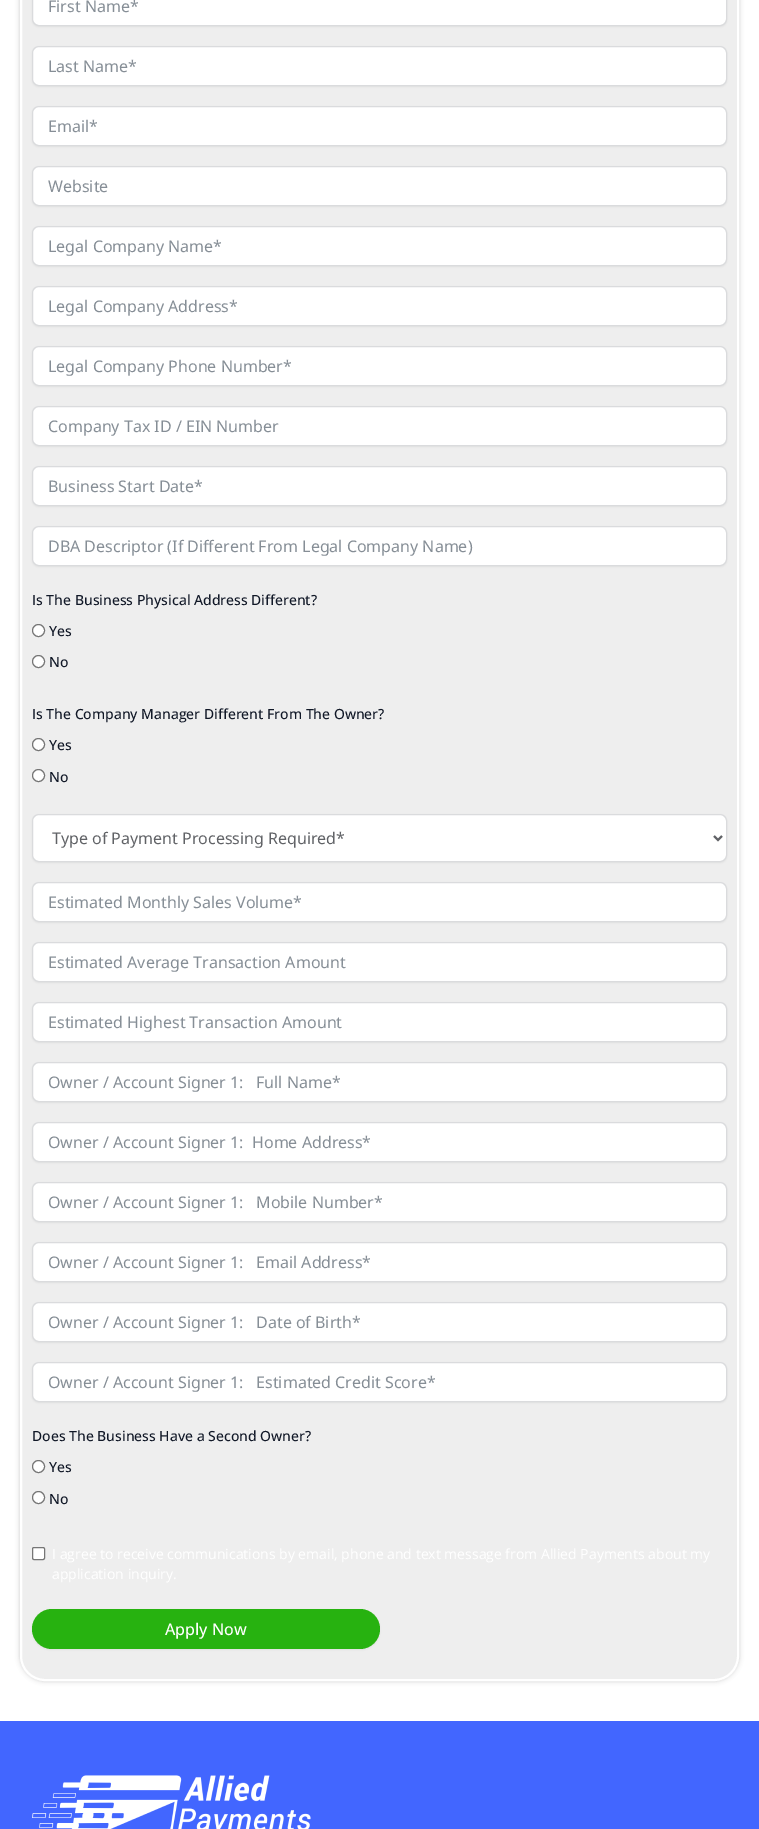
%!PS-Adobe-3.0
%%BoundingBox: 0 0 759 1829
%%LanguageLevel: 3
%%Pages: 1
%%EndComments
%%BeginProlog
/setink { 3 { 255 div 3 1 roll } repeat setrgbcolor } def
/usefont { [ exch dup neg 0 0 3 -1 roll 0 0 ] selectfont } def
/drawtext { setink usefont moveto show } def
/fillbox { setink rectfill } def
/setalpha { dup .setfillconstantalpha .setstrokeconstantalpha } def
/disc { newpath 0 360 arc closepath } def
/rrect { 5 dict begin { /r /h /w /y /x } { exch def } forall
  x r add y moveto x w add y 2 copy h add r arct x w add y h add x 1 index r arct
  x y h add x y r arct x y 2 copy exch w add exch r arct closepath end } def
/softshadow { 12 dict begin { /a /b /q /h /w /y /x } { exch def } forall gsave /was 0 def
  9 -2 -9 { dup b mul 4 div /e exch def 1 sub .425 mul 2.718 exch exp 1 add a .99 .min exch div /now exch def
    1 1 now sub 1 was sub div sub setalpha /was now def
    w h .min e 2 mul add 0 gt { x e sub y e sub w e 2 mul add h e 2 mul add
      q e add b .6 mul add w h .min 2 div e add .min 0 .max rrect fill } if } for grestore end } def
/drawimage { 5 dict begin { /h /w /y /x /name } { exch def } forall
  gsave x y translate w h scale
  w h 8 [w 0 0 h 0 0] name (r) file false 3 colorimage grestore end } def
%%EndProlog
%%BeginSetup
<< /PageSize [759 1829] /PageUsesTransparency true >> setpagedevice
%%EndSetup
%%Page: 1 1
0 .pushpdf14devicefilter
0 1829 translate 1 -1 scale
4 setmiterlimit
0 0 759 1829 255 255 255 fillbox
0 0 0 setink
20 -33 719 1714 25 2.5 0.2 softshadow
238 238 238 setink
21 -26 717 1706 24 rrect gsave fill grestore
255 255 255 setink
2 setlinewidth
stroke
0 0 0 setink
32 -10 695 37 7 1 0.05 softshadow
255 255 255 setink
33 -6 693 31 6 rrect fill
218 219 221 setink
1 setlinewidth
32.5 -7.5 694 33 6.5 rrect stroke
(First Name*) 48 12 /NotoSans-Regular 16 134 142 150 drawtext
0 0 0 setink
32 47 695 40 7 1 0.05 softshadow
255 255 255 setink
32.5 46.5 694 39 6.5 rrect gsave fill grestore
218 219 221 setink
stroke
(Last Name*) 48 72 /NotoSans-Regular 16 134 142 150 drawtext
0 0 0 setink
32 107 695 40 7 1 0.05 softshadow
255 255 255 setink
32.5 106.5 694 39 6.5 rrect gsave fill grestore
218 219 221 setink
stroke
(Email*) 48 132 /NotoSans-Regular 16 134 142 150 drawtext
0 0 0 setink
32 167 695 40 7 1 0.05 softshadow
255 255 255 setink
32.5 166.5 694 39 6.5 rrect gsave fill grestore
218 219 221 setink
stroke
(Website) 48 192 /NotoSans-Regular 16 134 142 150 drawtext
0 0 0 setink
32 227 695 40 7 1 0.05 softshadow
255 255 255 setink
32.5 226.5 694 39 6.5 rrect gsave fill grestore
218 219 221 setink
stroke
(Legal Company Name*) 48 252 /NotoSans-Regular 16 134 142 150 drawtext
0 0 0 setink
32 287 695 40 7 1 0.05 softshadow
255 255 255 setink
32.5 286.5 694 39 6.5 rrect gsave fill grestore
218 219 221 setink
stroke
(Legal Company Address*) 48 312 /NotoSans-Regular 16 134 142 150 drawtext
0 0 0 setink
32 347 695 40 7 1 0.05 softshadow
255 255 255 setink
32.5 346.5 694 39 6.5 rrect gsave fill grestore
218 219 221 setink
stroke
(Legal Company Phone Number*) 48 372 /NotoSans-Regular 16 134 142 150 drawtext
0 0 0 setink
32 407 695 40 7 1 0.05 softshadow
255 255 255 setink
32.5 406.5 694 39 6.5 rrect gsave fill grestore
218 219 221 setink
stroke
(Company Tax ID / EIN Number) 48 432 /NotoSans-Regular 16 134 142 150 drawtext
0 0 0 setink
32 467 695 40 7 1 0.05 softshadow
255 255 255 setink
32.5 466.5 694 39 6.5 rrect gsave fill grestore
218 219 221 setink
stroke
(Business Start Date*) 48 492 /NotoSans-Regular 16 134 142 150 drawtext
0 0 0 setink
32 527 695 40 7 1 0.05 softshadow
255 255 255 setink
32.5 526.5 694 39 6.5 rrect gsave fill grestore
218 219 221 setink
stroke
(DBA Descriptor \(If Different From Legal Company Name\)) 48 552 /NotoSans-Regular 16 134 142 150 drawtext
(Is The Business Physical Address Different?) 32 605 /OpenSans-Medium 14 17 24 39 drawtext
255 255 255 setink
38.5 630.5 6 disc gsave fill grestore
118 118 118 setink
stroke
(Yes) 49 636 /OpenSans-Medium 14 17 24 39 drawtext
255 255 255 setink
38.5 661.5 6 disc gsave fill grestore
118 118 118 setink
stroke
(No) 49 667 /OpenSans-Medium 14 17 24 39 drawtext
(Is The Company Manager Different From The Owner?) 32 719 /OpenSans-Medium 14 17 24 39 drawtext
255 255 255 setink
38.5 744.5 6 disc gsave fill grestore
118 118 118 setink
stroke
(Yes) 49 750 /OpenSans-Medium 14 17 24 39 drawtext
255 255 255 setink
38.5 775.5 6 disc gsave fill grestore
118 118 118 setink
stroke
(No) 49 782 /OpenSans-Medium 14 17 24 39 drawtext
0 0 0 setink
32 815 695 48 7 1 0.05 softshadow
255 255 255 setink
32.5 814.5 694 47 6.5 rrect gsave fill grestore
218 219 221 setink
stroke
96 98 102 setink
2 setlinewidth
714 836 moveto 718 840 lineto 722 836 lineto stroke
(Type of Payment Processing Required*) 52 844 /NotoSans-Regular 16 96 98 102 drawtext
0 0 0 setink
32 883 695 40 7 1 0.05 softshadow
255 255 255 setink
32.5 882.5 694 39 6.5 rrect gsave fill grestore
218 219 221 setink
1 setlinewidth
stroke
(Estimated Monthly Sales Volume*) 48 908 /NotoSans-Regular 16 134 142 150 drawtext
0 0 0 setink
32 943 695 40 7 1 0.05 softshadow
255 255 255 setink
32.5 942.5 694 39 6.5 rrect gsave fill grestore
218 219 221 setink
stroke
(Estimated Average Transaction Amount) 48 968 /NotoSans-Regular 16 134 142 150 drawtext
0 0 0 setink
32 1003 695 40 7 1 0.05 softshadow
255 255 255 setink
32.5 1002.5 694 39 6.5 rrect gsave fill grestore
218 219 221 setink
stroke
(Estimated Highest Transaction Amount) 48 1028 /NotoSans-Regular 16 134 142 150 drawtext
0 0 0 setink
32 1063 695 40 7 1 0.05 softshadow
255 255 255 setink
32.5 1062.5 694 39 6.5 rrect gsave fill grestore
218 219 221 setink
stroke
(Owner / Account Signer 1:   Full Name*) 48 1088 /NotoSans-Regular 16 134 142 150 drawtext
0 0 0 setink
32 1123 695 40 7 1 0.05 softshadow
255 255 255 setink
32.5 1122.5 694 39 6.5 rrect gsave fill grestore
218 219 221 setink
stroke
(Owner / Account Signer 1:  Home Address*) 48 1148 /NotoSans-Regular 16 134 142 150 drawtext
0 0 0 setink
32 1183 695 40 7 1 0.05 softshadow
255 255 255 setink
32.5 1182.5 694 39 6.5 rrect gsave fill grestore
218 219 221 setink
stroke
(Owner / Account Signer 1:   Mobile Number*) 48 1208 /NotoSans-Regular 16 134 142 150 drawtext
0 0 0 setink
32 1243 695 40 7 1 0.05 softshadow
255 255 255 setink
32.5 1242.5 694 39 6.5 rrect gsave fill grestore
218 219 221 setink
stroke
(Owner / Account Signer 1:   Email Address*) 48 1268 /NotoSans-Regular 16 134 142 150 drawtext
0 0 0 setink
32 1303 695 40 7 1 0.05 softshadow
255 255 255 setink
32.5 1302.5 694 39 6.5 rrect gsave fill grestore
218 219 221 setink
stroke
(Owner / Account Signer 1:   Date of Birth*) 48 1328 /NotoSans-Regular 16 134 142 150 drawtext
0 0 0 setink
32 1363 695 40 7 1 0.05 softshadow
255 255 255 setink
32.5 1362.5 694 39 6.5 rrect gsave fill grestore
218 219 221 setink
stroke
(Owner / Account Signer 1:   Estimated Credit Score*) 48 1388 /NotoSans-Regular 16 134 142 150 drawtext
(Does The Business Have a Second Owner?) 32 1441 /OpenSans-Medium 14 17 24 39 drawtext
255 255 255 setink
38.5 1466.5 6 disc gsave fill grestore
118 118 118 setink
stroke
(Yes) 49 1472 /OpenSans-Medium 14 17 24 39 drawtext
255 255 255 setink
38.5 1497.5 6 disc gsave fill grestore
118 118 118 setink
stroke
(No) 49 1504 /OpenSans-Medium 14 17 24 39 drawtext
255 255 255 setink
32.5 1547.5 12 12 1.5 rrect gsave fill grestore
118 118 118 setink
stroke
(I agree to receive communications by email, phone and text message from Allied Payments about my) 52 1559 /OpenSans-Regular 14 255 255 255 drawtext
(application inquiry.) 52 1579 /OpenSans-Regular 14 255 255 255 drawtext
0 0 0 setink
32 1610 348 40 20 1 0.05 softshadow
39 178 16 setink
32 1609 348 40 20 rrect fill
(Apply Now) 165 1635 /OpenSans-Medium 16 255 255 255 drawtext
0 1721 759 108 66 102 255 fillbox
(assets/img1.rgb) 32 1775 279 54 drawimage
.poppdf14devicefilter showpage
%%EOF
